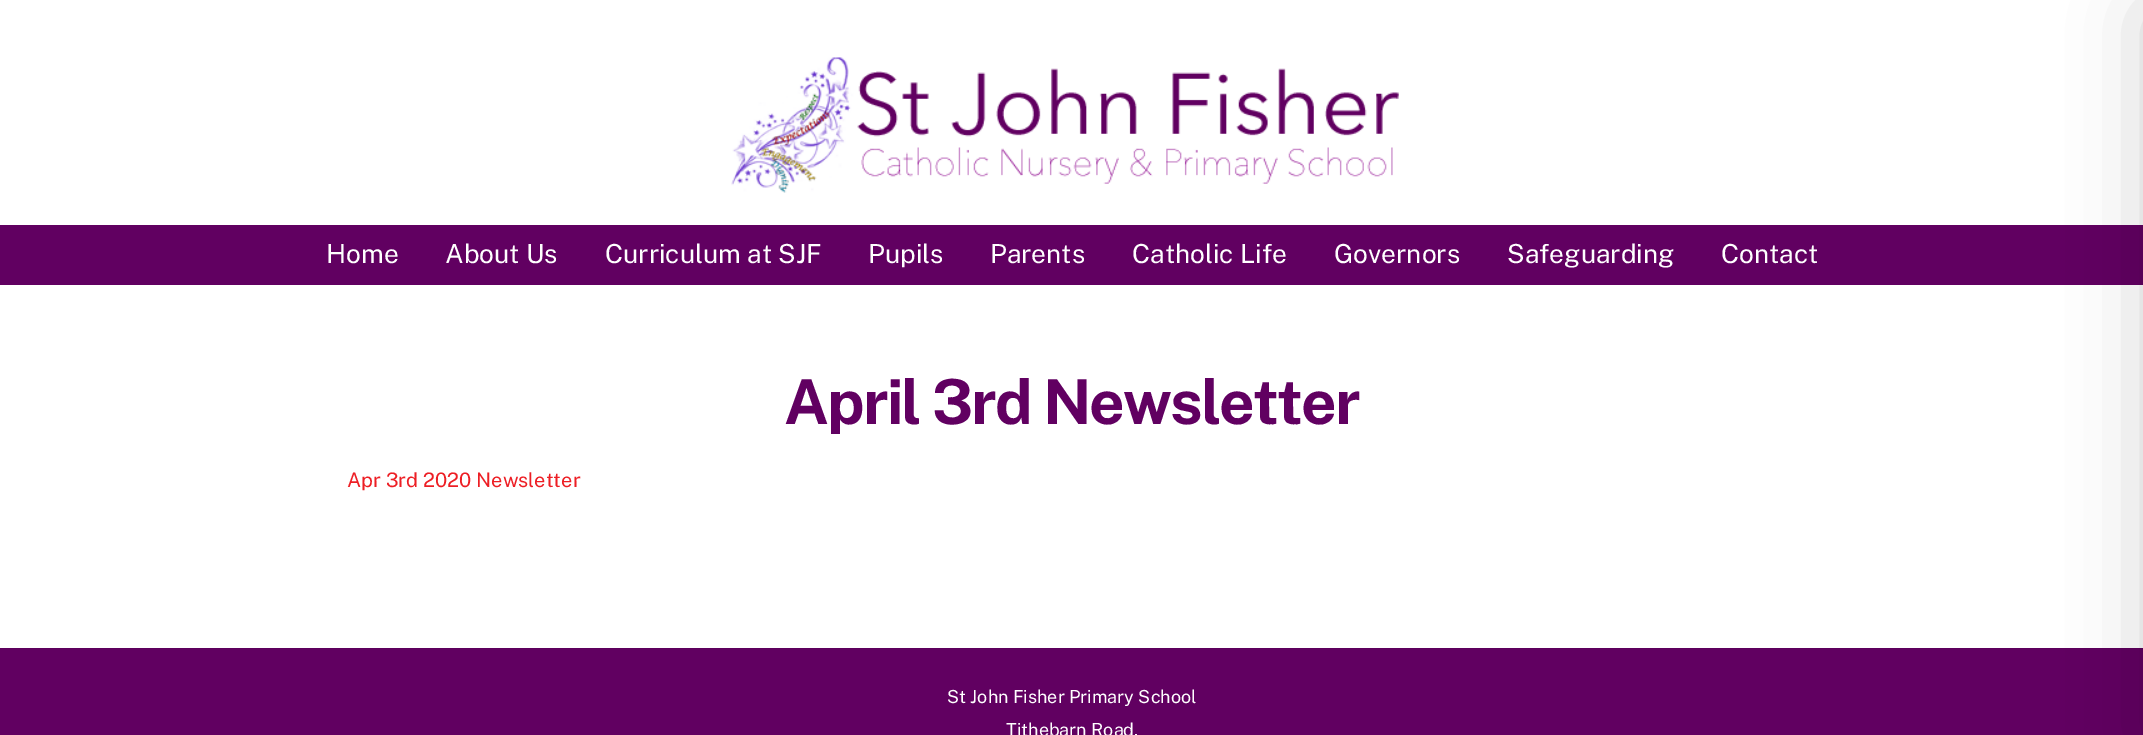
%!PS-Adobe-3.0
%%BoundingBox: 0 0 2143 735
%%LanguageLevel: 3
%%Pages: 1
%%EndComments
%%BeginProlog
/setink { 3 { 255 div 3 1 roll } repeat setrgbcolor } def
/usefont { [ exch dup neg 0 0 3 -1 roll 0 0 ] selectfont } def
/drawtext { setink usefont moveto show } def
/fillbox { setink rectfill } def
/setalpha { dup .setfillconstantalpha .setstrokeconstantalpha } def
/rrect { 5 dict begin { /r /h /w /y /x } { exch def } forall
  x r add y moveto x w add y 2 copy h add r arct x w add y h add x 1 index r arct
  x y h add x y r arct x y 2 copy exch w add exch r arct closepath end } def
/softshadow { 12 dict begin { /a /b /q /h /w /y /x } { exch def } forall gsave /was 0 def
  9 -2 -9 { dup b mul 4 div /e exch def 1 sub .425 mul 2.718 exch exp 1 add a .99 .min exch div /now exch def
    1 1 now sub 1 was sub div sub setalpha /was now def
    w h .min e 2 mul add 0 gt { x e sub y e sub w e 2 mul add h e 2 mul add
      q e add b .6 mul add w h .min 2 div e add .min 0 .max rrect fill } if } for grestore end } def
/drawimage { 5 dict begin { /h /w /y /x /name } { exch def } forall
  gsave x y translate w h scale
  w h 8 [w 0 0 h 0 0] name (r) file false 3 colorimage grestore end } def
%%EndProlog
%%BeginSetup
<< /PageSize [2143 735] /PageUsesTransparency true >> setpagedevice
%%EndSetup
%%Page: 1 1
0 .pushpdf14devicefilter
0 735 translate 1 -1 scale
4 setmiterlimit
0 0 2143 735 255 255 255 fillbox
(assets/img1.rgb) 731 57 668 136 drawimage
0 225 2143 60 97 0 97 fillbox
(Home) 326 263 /PublicSans-Regular 26.25 255 255 255 drawtext
(About Us) 445 263 /PublicSans-Regular 26.25 255 255 255 drawtext
(Curriculum at SJF) 605 263 /PublicSans-Regular 26.25 255 255 255 drawtext
(Pupils) 868 263 /PublicSans-Regular 26.25 255 255 255 drawtext
(Parents) 990 263 /PublicSans-Regular 26.25 255 255 255 drawtext
(Catholic Life) 1132 263 /PublicSans-Regular 26.25 255 255 255 drawtext
(Governors) 1334 263 /PublicSans-Regular 26.25 255 255 255 drawtext
(Safeguarding) 1507 263 /PublicSans-Regular 26.25 255 255 255 drawtext
(Contact) 1721 263 /PublicSans-Regular 26.25 255 255 255 drawtext
/PublicSans-Bold 62 usefont
97 0 97 setink
784 424 moveto -1.9 0 (April 3rd Newsletter) ashow
(Apr 3rd 2020 Newsletter) 347 487 /PublicSans-Regular 20 237 30 36 drawtext
0 649 2143 86 97 0 97 fillbox
0 648 2143 1 92 0 92 fillbox
(St John Fisher Primary School) 947 703 /PublicSans-Regular 18 255 255 255 drawtext
(Tithebarn Road,) 1006 736 /PublicSans-Regular 18 255 255 255 drawtext
0 0 0 setink
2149 13 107 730 0 37.5 0.2 softshadow
.poppdf14devicefilter showpage
%%EOF
